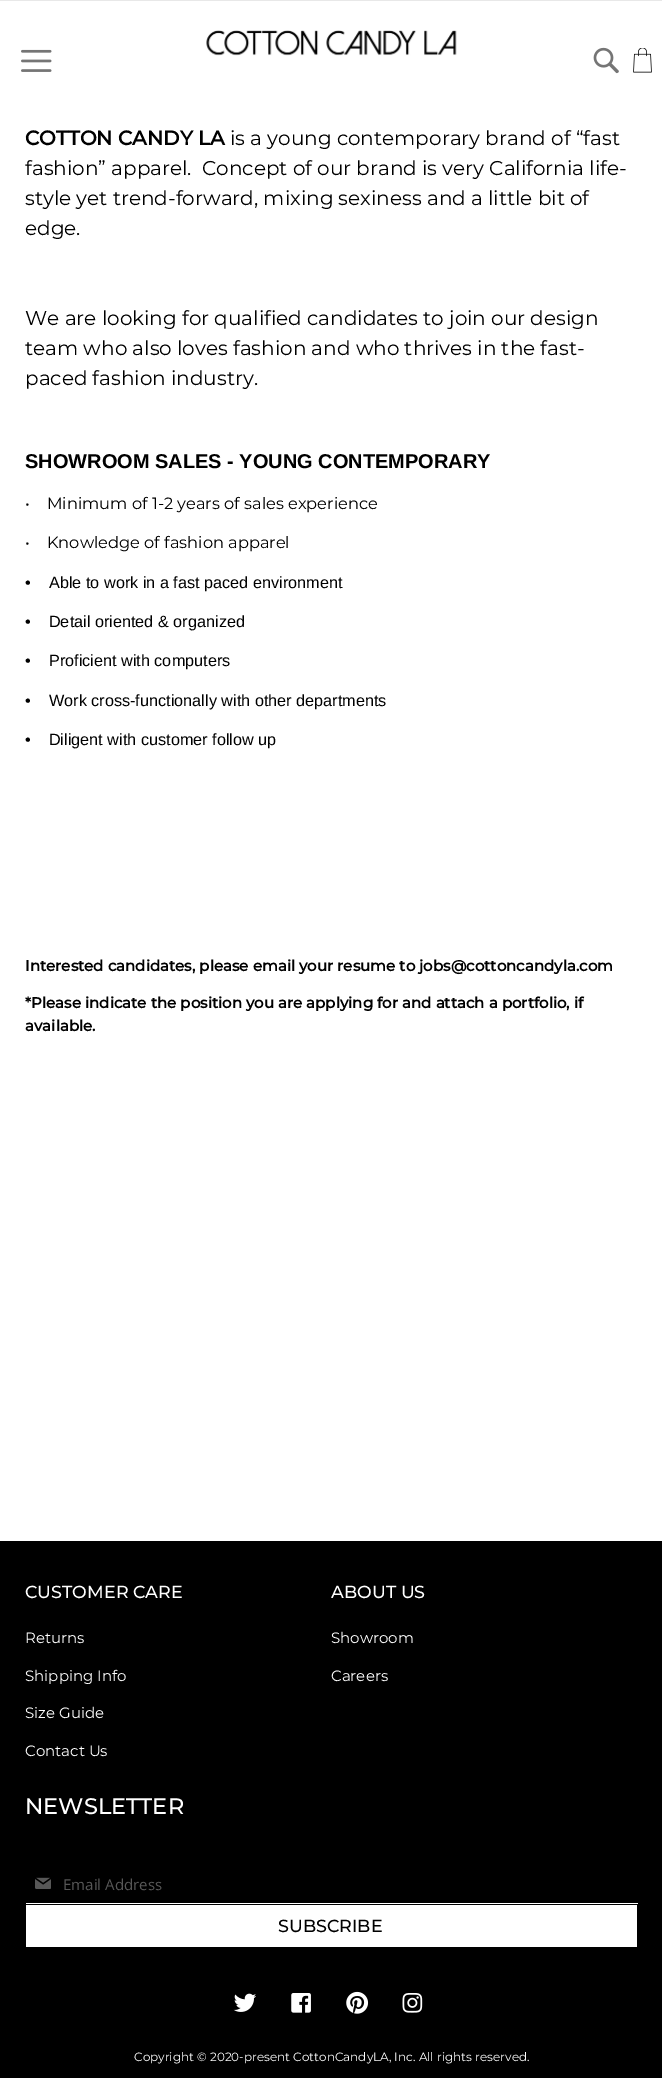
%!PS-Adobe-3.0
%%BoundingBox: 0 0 662 2078
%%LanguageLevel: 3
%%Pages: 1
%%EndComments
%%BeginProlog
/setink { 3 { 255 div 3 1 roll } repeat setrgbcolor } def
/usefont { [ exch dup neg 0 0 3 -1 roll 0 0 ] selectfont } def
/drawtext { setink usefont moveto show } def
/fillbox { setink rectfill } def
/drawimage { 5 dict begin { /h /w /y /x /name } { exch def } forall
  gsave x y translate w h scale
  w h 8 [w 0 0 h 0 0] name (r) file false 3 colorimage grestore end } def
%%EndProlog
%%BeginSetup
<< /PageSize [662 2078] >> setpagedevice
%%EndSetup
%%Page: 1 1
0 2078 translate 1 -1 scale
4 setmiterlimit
0 0 662 2078 255 255 255 fillbox
0 0 662 1 232 232 232 fillbox
(assets/img1.rgb) 206 30 251 26 drawimage
(assets/img2.rgb) 21 49 31 23 drawimage
(assets/img3.rgb) 593 47 26 27 drawimage
(assets/img4.rgb) 633 48 19 25 drawimage
(COTTON CANDY LA) 25 145 /Montserrat-Bold 20 0 0 0 drawtext
(is a young contemporary brand of “fast) 230 145 /Montserrat-Regular 20 0 0 0 drawtext
(fashion” apparel.  Concept of our brand is very California life-) 25 175 /Montserrat-Regular 20 0 0 0 drawtext
(style yet trend-forward, mixing sexiness and a little bit of) 25 205 /Montserrat-Regular 20 0 0 0 drawtext
(edge.) 25 235 /Montserrat-Regular 20 0 0 0 drawtext
(We are looking for qualified candidates to join our design) 25 325 /Montserrat-Regular 20 0 0 0 drawtext
(team who also loves fashion and who thrives in the fast-) 25 355 /Montserrat-Regular 20 0 0 0 drawtext
(paced fashion industry.) 25 385 /Montserrat-Regular 20 0 0 0 drawtext
(SHOWROOM SALES - YOUNG CONTEMPORARY) 25 468 /LiberationSans-Bold 20 0 0 0 drawtext
(•    Minimum of 1-2 years of sales experience) 25 509 /Montserrat-Regular 16.25 0 0 0 drawtext
(•    Knowledge of fashion apparel) 25 548 /Montserrat-Regular 16.25 0 0 0 drawtext
(•    Able to work in a fast paced environment) 25 588 /LiberationSans-Regular 16.25 0 0 0 drawtext
(•    Detail oriented & organized) 25 627 /LiberationSans-Regular 16.25 0 0 0 drawtext
(•    Proficient with computers) 25 666 /LiberationSans-Regular 16.25 0 0 0 drawtext
(•    Work cross-functionally with other departments) 25 706 /LiberationSans-Regular 16.25 0 0 0 drawtext
(•    Diligent with customer follow up) 25 745 /LiberationSans-Regular 16.25 0 0 0 drawtext
(Interested candidates, please email your resume to jobs@cottoncandyla.com) 25 971 /Montserrat-Bold 15 0 0 0 drawtext
(*Please indicate the position you are applying for and attach a portfolio, if) 25 1008 /Montserrat-Bold 15 0 0 0 drawtext
(available.) 25 1031 /Montserrat-Bold 15 0 0 0 drawtext
0 1541 662 537 0 0 0 fillbox
(CUSTOMER CARE) 25 1598 /Montserrat-Medium 17.5 255 255 255 drawtext
(Returns) 25 1643 /Montserrat-Regular 15 255 255 255 drawtext
(Shipping Info) 25 1681 /Montserrat-Regular 15 255 255 255 drawtext
(Size Guide) 25 1718 /Montserrat-Regular 15 255 255 255 drawtext
(Contact Us) 25 1756 /Montserrat-Regular 15 255 255 255 drawtext
(ABOUT US) 331 1598 /Montserrat-Medium 17.5 255 255 255 drawtext
(Showroom) 331 1643 /Montserrat-Regular 15 255 255 255 drawtext
(Careers) 331 1681 /Montserrat-Regular 15 255 255 255 drawtext
(NEWSLETTER) 25 1814 /Montserrat-Medium 22.5 255 255 255 drawtext
(assets/img5.rgb) 35 1877 16 12 drawimage
26 1903 612 1 255 255 255 fillbox
(Email Address) 63 1890 /OpenSans-Regular 15 87 87 87 drawtext
26 1905 611 42 255 255 255 fillbox
(SUBSCRIBE) 278 1932 /Montserrat-Medium 17.5 0 0 0 drawtext
(assets/img6.rgb) 233 1993 23 19 drawimage
(assets/img7.rgb) 291 1993 20 20 drawimage
(assets/img8.rgb) 346 1991 23 23 drawimage
(assets/img9.rgb) 402 1993 21 20 drawimage
(Copyright © 2020-present CottonCandyLA, Inc. All rights reserved.) 134 2061 /Montserrat-Regular 12 255 255 255 drawtext
showpage
%%EOF
